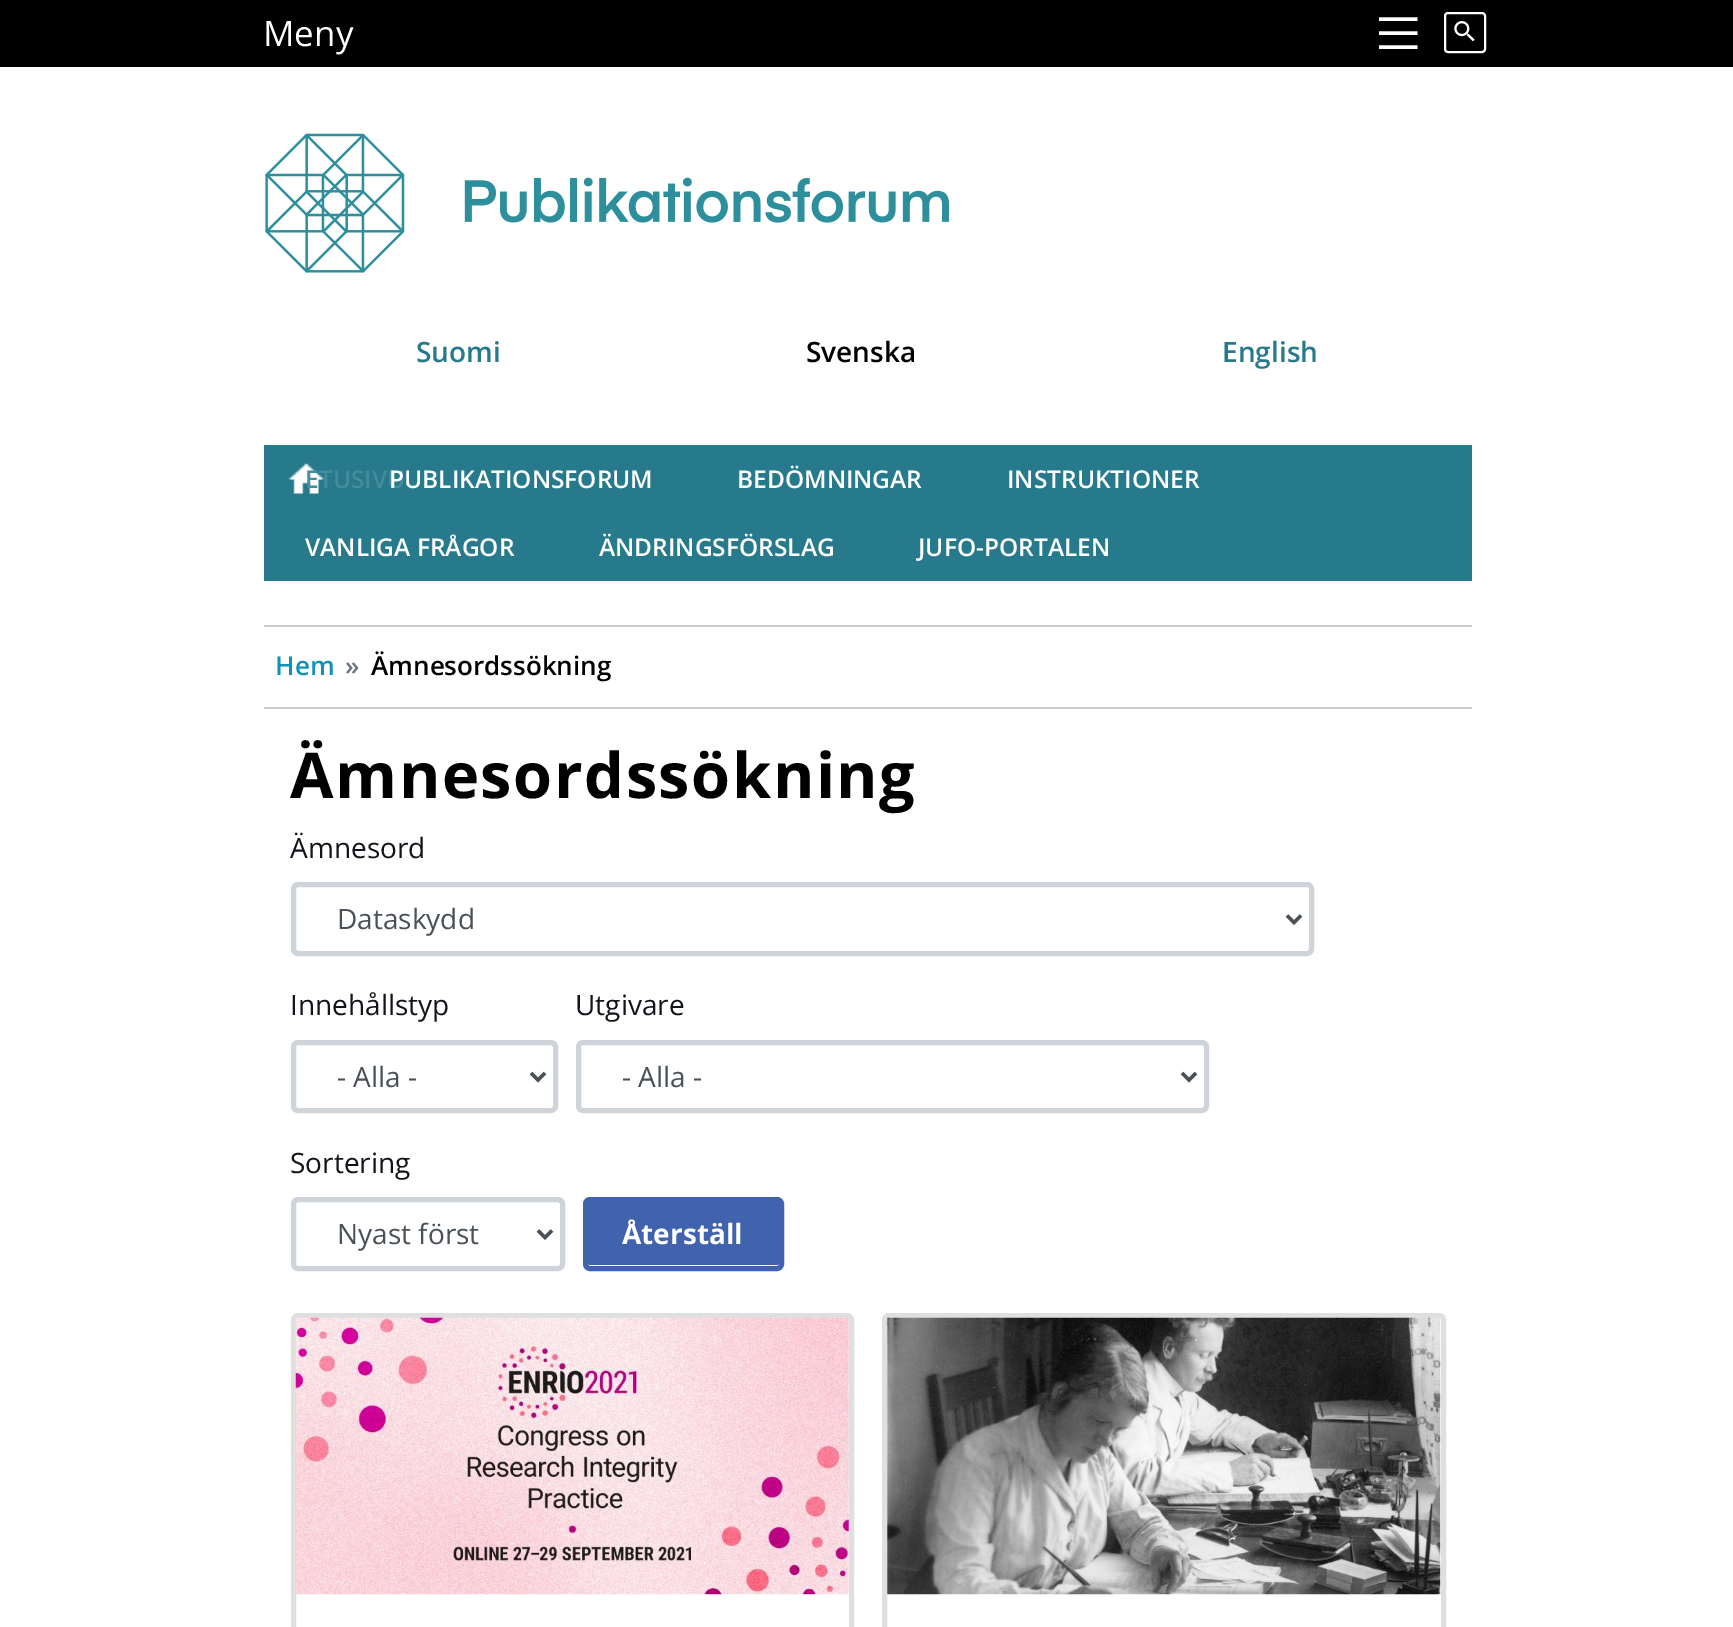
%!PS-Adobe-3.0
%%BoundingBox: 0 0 1733 1627
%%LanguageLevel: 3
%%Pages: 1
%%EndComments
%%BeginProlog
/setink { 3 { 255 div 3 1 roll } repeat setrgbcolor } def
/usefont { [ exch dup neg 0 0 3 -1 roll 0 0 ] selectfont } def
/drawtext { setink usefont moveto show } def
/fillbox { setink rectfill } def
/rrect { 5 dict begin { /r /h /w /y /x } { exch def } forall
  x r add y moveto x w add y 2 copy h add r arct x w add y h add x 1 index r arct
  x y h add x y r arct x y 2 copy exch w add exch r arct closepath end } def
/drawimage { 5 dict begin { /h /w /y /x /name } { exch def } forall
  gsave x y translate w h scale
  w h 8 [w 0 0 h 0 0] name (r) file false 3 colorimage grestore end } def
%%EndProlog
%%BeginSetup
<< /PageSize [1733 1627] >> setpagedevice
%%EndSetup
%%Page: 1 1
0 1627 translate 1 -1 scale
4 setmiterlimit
0 0 1733 1627 255 255 255 fillbox
0 0 1733 67 0 0 0 fillbox
(Meny) 263 46 /OpenSans-Regular 35 255 255 255 drawtext
3.5 setlinewidth
1379 19 moveto 1417.5 19 lineto 1379 33 moveto 1417.5 33 lineto 1379 47 moveto 1417.5 47 lineto stroke
2 setlinewidth
1445 13 40 39 3 rrect stroke
(assets/img1.rgb) 1454 21 21 21 drawimage
(assets/img2.rgb) 265 133 684 140 drawimage
(Suomi) 416 362 /OpenSans-SemiBold 28 39 122 140 drawtext
(Svenska) 806 362 /OpenSans-SemiBold 28 0 0 0 drawtext
(English) 1222 362 /OpenSans-SemiBold 28 39 122 140 drawtext
264 445 1208 136 39 122 140 fillbox
(assets/img3.rgb) 288 463 36 31 drawimage
(ETUSIVU) 305 488 /OpenSans-SemiBold 24.5 68 140 155 drawtext
(PUBLIKATIONSFORUM) 389 488 /OpenSans-SemiBold 24.5 255 255 255 drawtext
(BEDÖMNINGAR) 737 488 /OpenSans-SemiBold 24.5 255 255 255 drawtext
(INSTRUKTIONER) 1007 488 /OpenSans-SemiBold 24.5 255 255 255 drawtext
(VANLIGA FRÅGOR) 305 556 /OpenSans-SemiBold 24.5 255 255 255 drawtext
(ÄNDRINGSFÖRSLAG) 599 556 /OpenSans-SemiBold 24.5 255 255 255 drawtext
(JUFO-PORTALEN) 918 556 /OpenSans-SemiBold 24.5 255 255 255 drawtext
264 625 1208 2 204 204 204 fillbox
264 707 1208 2 204 204 204 fillbox
(Hem) 275 675 /OpenSans-SemiBold 26 15 146 185 drawtext
(») 345 675 /OpenSans-SemiBold 26 108 117 125 drawtext
(Ämnesordssökning) 371 675 /OpenSans-SemiBold 26 0 0 0 drawtext
/OpenSans-Bold 63 usefont
290 798 moveto 1.6 0 (Ämnesordssökning) ashow
(Ämnesord) 290 858 /OpenSans-Regular 28 17 21 26 drawtext
206 212 218 setink
5 setlinewidth
293.5 884.5 1018 69 4.5 rrect stroke
73 80 87 setink
3.5 setlinewidth
1287 915.5 moveto 1294 922.5 lineto 1301 915.5 lineto stroke
(Dataskydd) 337 929 /OpenSans-Regular 28 73 80 87 drawtext
(Innehållstyp) 290 1015 /OpenSans-Regular 28 17 21 26 drawtext
206 212 218 setink
5 setlinewidth
293.5 1042.5 262 68 4.5 rrect stroke
73 80 87 setink
3.5 setlinewidth
531 1073 moveto 538 1080 lineto 545 1073 lineto stroke
(- Alla -) 337 1087 /OpenSans-Regular 28 73 80 87 drawtext
(Utgivare) 575 1015 /OpenSans-Regular 28 17 21 26 drawtext
206 212 218 setink
5 setlinewidth
578.5 1042.5 628 68 4.5 rrect stroke
73 80 87 setink
3.5 setlinewidth
1182 1073 moveto 1189 1080 lineto 1196 1073 lineto stroke
(- Alla -) 622 1087 /OpenSans-Regular 28 73 80 87 drawtext
(Sortering) 290 1173 /OpenSans-Regular 28 17 21 26 drawtext
206 212 218 setink
5 setlinewidth
293.5 1199.5 269 69 4.5 rrect stroke
73 80 87 setink
3.5 setlinewidth
538 1230.5 moveto 545 1237.5 lineto 552 1230.5 lineto stroke
(Nyast först) 337 1244 /OpenSans-Regular 28 73 80 87 drawtext
65 99 173 setink
588 1202 191 63 2 rrect fill
5 setlinewidth
585.5 1199.5 196 69 4.5 rrect stroke
(Återställ) 622 1244 /OpenSans-Bold 28 255 255 255 drawtext
223 223 223 setink
293.5 1315.5 558 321 4.5 rrect stroke
(assets/img4.rgb) 295 1317 554 278 drawimage
884.5 1315.5 559 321 4.5 rrect stroke
(assets/img5.rgb) 887 1317 554 278 drawimage
showpage
%%EOF
